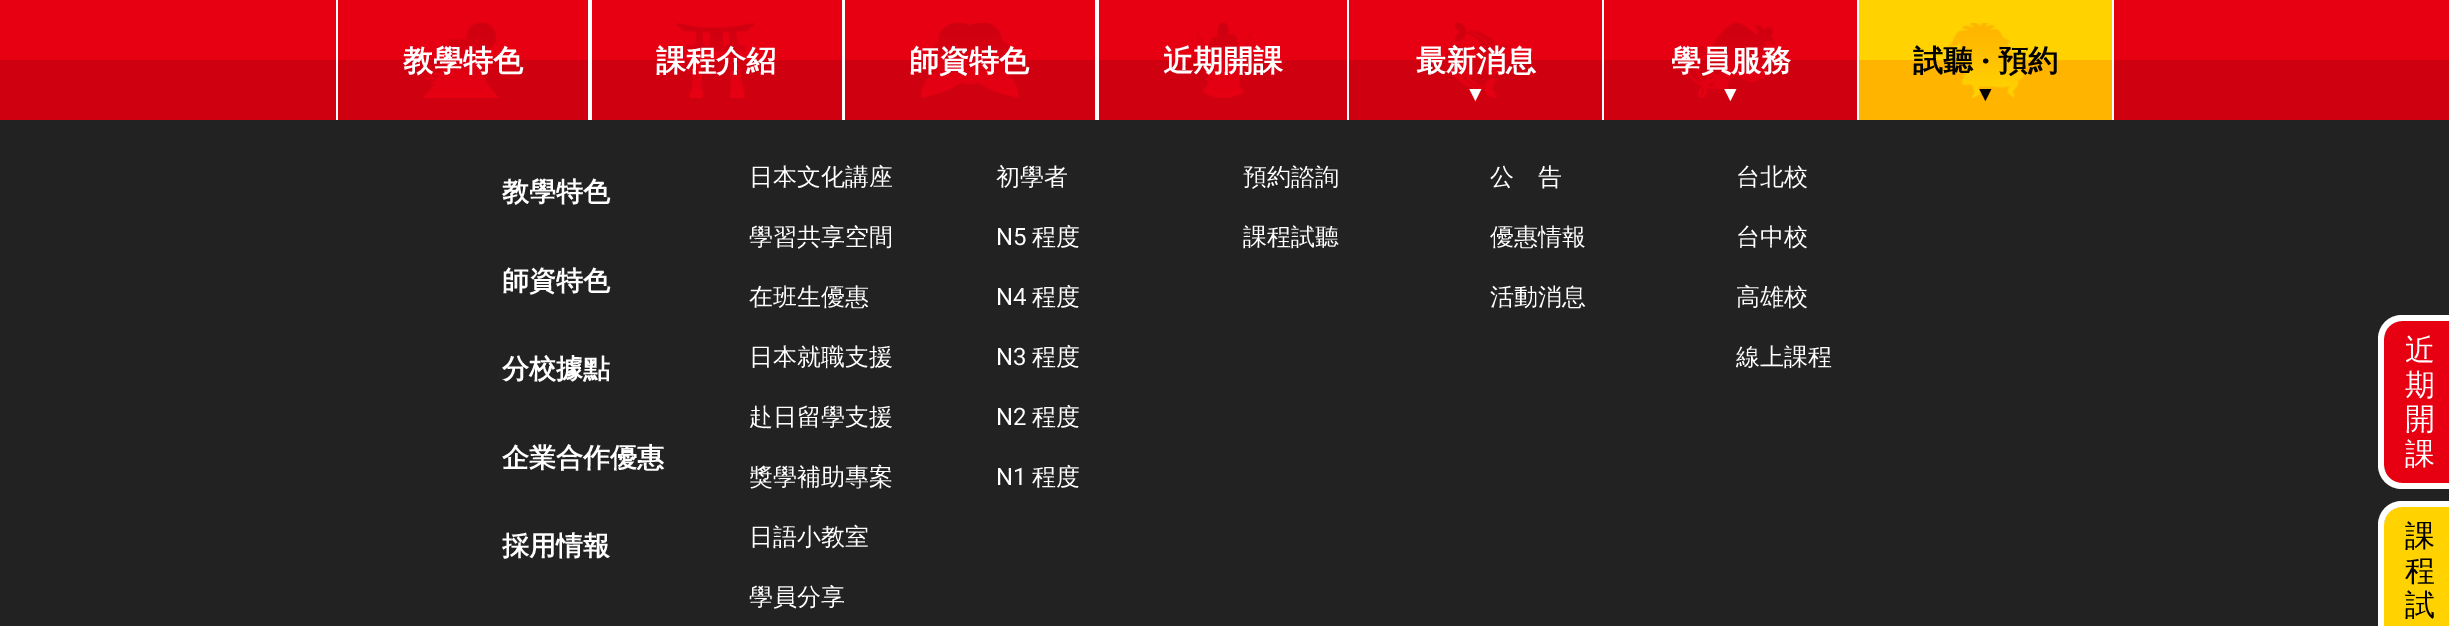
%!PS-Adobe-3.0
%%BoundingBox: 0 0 2449 626
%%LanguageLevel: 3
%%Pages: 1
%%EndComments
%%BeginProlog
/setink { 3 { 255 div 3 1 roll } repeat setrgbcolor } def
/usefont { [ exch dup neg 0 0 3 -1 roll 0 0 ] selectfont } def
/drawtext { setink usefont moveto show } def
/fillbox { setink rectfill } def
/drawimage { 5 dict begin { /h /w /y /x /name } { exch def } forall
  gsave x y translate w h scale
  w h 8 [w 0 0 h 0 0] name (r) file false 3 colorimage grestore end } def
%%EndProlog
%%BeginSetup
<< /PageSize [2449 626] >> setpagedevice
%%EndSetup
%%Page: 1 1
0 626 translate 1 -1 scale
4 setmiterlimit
0 0 2449 626 34 34 34 fillbox
0 0 2449 60 230 0 18 fillbox
0 60 2449 60 207 0 16 fillbox
588 0 4 120 255 255 255 fillbox
336 0 2 120 255 255 255 fillbox
(assets/img1.rgb) 423 23 78 75 drawimage
(教學特色) 403 71 /WenQuanYiZenHei-Bold 30 255 255 255 drawtext
842 0 3 120 255 255 255 fillbox
(assets/img2.rgb) 676 23 79 75 drawimage
(課程介紹) 656 71 /WenQuanYiZenHei-Bold 30 255 255 255 drawtext
1095 0 4 120 255 255 255 fillbox
(assets/img3.rgb) 921 23 98 75 drawimage
(師資特色) 909 71 /WenQuanYiZenHei-Bold 30 255 255 255 drawtext
1347 0 2 120 255 255 255 fillbox
(assets/img4.rgb) 1187 23 73 75 drawimage
(近期開課) 1163 71 /WenQuanYiZenHei-Bold 30 255 255 255 drawtext
1602 0 2 120 255 255 255 fillbox
(assets/img5.rgb) 1441 23 69 75 drawimage
(最新消息) 1416 71 /WenQuanYiZenHei-Bold 30 255 255 255 drawtext
(▼) 1465 101 /LiberationSans-Bold 21 255 255 255 drawtext
1857 0 2 120 255 255 255 fillbox
(assets/img6.rgb) 1686 23 89 75 drawimage
(學員服務) 1671 71 /WenQuanYiZenHei-Bold 30 255 255 255 drawtext
(▼) 1720 101 /LiberationSans-Bold 21 255 255 255 drawtext
1859 0 253 60 255 210 0 fillbox
2112 0 2 120 255 255 255 fillbox
1859 60 253 60 255 180 0 fillbox
(assets/img7.rgb) 1948 23 76 75 drawimage
(試聽) 1913 71 /WenQuanYiZenHei-Bold 30 0 0 0 drawtext
(·) 1981 71 /Roboto-Black 30 0 0 0 drawtext
(預約) 1998 71 /WenQuanYiZenHei-Bold 30 0 0 0 drawtext
(▼) 1975 101 /LiberationSans-Bold 21 0 0 0 drawtext
(教學特色) 502 201 /WenQuanYiZenHei-Bold 27 255 255 255 drawtext
(師資特色) 502 290 /WenQuanYiZenHei-Bold 27 255 255 255 drawtext
(分校據點) 502 378 /WenQuanYiZenHei-Bold 27 255 255 255 drawtext
(企業合作優惠) 502 467 /WenQuanYiZenHei-Bold 27 255 255 255 drawtext
(採用情報) 502 555 /WenQuanYiZenHei-Bold 27 255 255 255 drawtext
(日本文化講座) 749 185 /WenQuanYiZenHei-Medium 24 255 255 255 drawtext
(學習共享空間) 749 245 /WenQuanYiZenHei-Medium 24 255 255 255 drawtext
(在班生優惠) 749 305 /WenQuanYiZenHei-Medium 24 255 255 255 drawtext
(日本就職支援) 749 365 /WenQuanYiZenHei-Medium 24 255 255 255 drawtext
(赴日留學支援) 749 425 /WenQuanYiZenHei-Medium 24 255 255 255 drawtext
(獎學補助專案) 749 485 /WenQuanYiZenHei-Medium 24 255 255 255 drawtext
(日語小教室) 749 545 /WenQuanYiZenHei-Medium 24 255 255 255 drawtext
(學員分享) 749 605 /WenQuanYiZenHei-Medium 24 255 255 255 drawtext
(初學者) 996 185 /WenQuanYiZenHei-Medium 24 255 255 255 drawtext
(N5) 996 245 /Roboto-Regular 24 255 255 255 drawtext
(程度) 1032 245 /WenQuanYiZenHei-Medium 24 255 255 255 drawtext
(N4) 996 305 /Roboto-Regular 24 255 255 255 drawtext
(程度) 1032 305 /WenQuanYiZenHei-Medium 24 255 255 255 drawtext
(N3) 996 365 /Roboto-Regular 24 255 255 255 drawtext
(程度) 1032 365 /WenQuanYiZenHei-Medium 24 255 255 255 drawtext
(N2) 996 425 /Roboto-Regular 24 255 255 255 drawtext
(程度) 1032 425 /WenQuanYiZenHei-Medium 24 255 255 255 drawtext
(N1) 996 485 /Roboto-Regular 24 255 255 255 drawtext
(程度) 1032 485 /WenQuanYiZenHei-Medium 24 255 255 255 drawtext
(預約諮詢) 1243 185 /WenQuanYiZenHei-Medium 24 255 255 255 drawtext
(課程試聽) 1243 245 /WenQuanYiZenHei-Medium 24 255 255 255 drawtext
(公　告) 1490 185 /WenQuanYiZenHei-Medium 24 255 255 255 drawtext
(優惠情報) 1490 245 /WenQuanYiZenHei-Medium 24 255 255 255 drawtext
(活動消息) 1490 305 /WenQuanYiZenHei-Medium 24 255 255 255 drawtext
(台北校) 1736 185 /WenQuanYiZenHei-Medium 24 255 255 255 drawtext
(台中校) 1736 245 /WenQuanYiZenHei-Medium 24 255 255 255 drawtext
(高雄校) 1736 305 /WenQuanYiZenHei-Medium 24 255 255 255 drawtext
(線上課程) 1736 365 /WenQuanYiZenHei-Medium 24 255 255 255 drawtext
230 0 18 setink
2402 321 moveto 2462 321 lineto 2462 483 lineto 2402 483 lineto 2392 483 2384 475 2384 465 curveto 2384 339 lineto 2384 329 2392 321 2402 321 curveto closepath fill
255 255 255 setink
2402 315 moveto 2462 315 lineto 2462 489 lineto 2402 489 lineto 2388 489 2378 478 2378 465 curveto 2378 339 lineto 2378 326 2388 315 2402 315 curveto closepath 2402 321 moveto 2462 321 lineto 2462 483 lineto 2402 483 lineto 2392 483 2384 475 2384 465 curveto 2384 339 lineto 2384 329 2392 321 2402 321 curveto closepath eofill
/WenQuanYiZenHei-Medium 30 usefont
2405 360 moveto 3 0 (近) ashow
2405 395 moveto 3 0 (期) ashow
2405 429 moveto 3 0 (開) ashow
2405 464 moveto 3 0 (課) ashow
255 210 0 setink
2402 507 moveto 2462 507 lineto 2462 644 lineto 2402 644 lineto 2392 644 2384 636 2384 626 curveto 2384 525 lineto 2384 515 2392 507 2402 507 curveto closepath fill
255 255 255 setink
2402 501 moveto 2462 501 lineto 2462 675 lineto 2402 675 lineto 2388 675 2378 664 2378 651 curveto 2378 525 lineto 2378 512 2388 501 2402 501 curveto closepath 2402 507 moveto 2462 507 lineto 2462 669 lineto 2402 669 lineto 2392 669 2384 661 2384 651 curveto 2384 525 lineto 2384 515 2392 507 2402 507 curveto closepath eofill
0 0 0 setink
2405 546 moveto 3 0 (課) ashow
2405 581 moveto 3 0 (程) ashow
2405 615 moveto 3 0 (試) ashow
showpage
%%EOF
